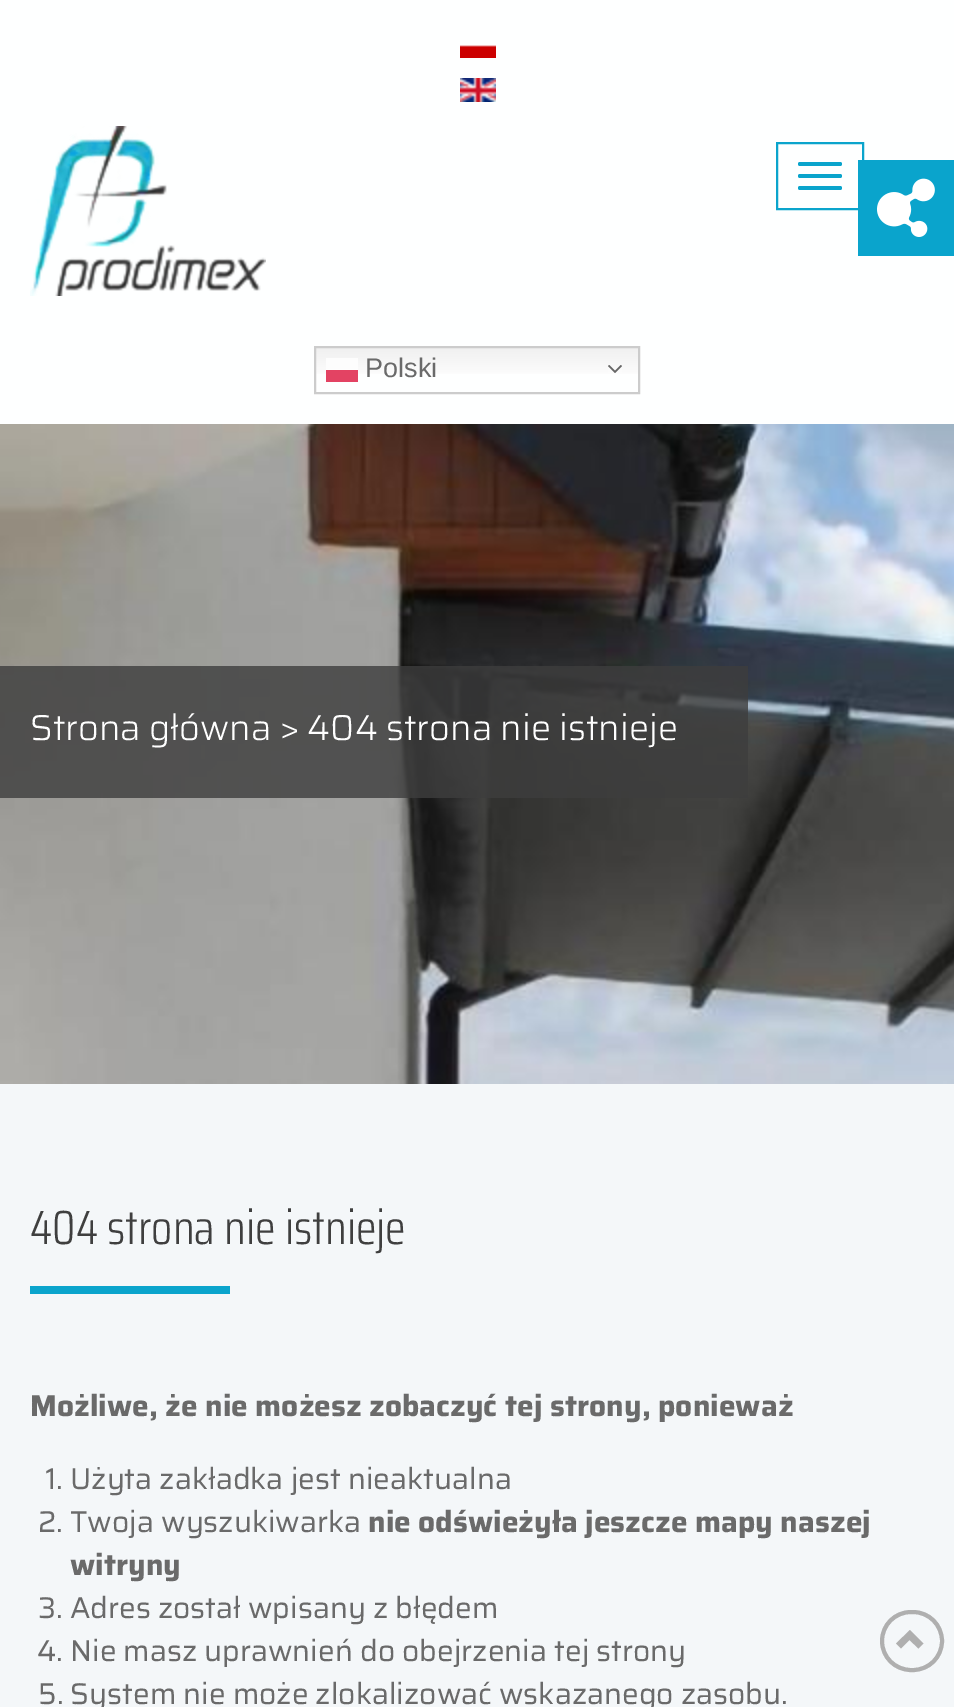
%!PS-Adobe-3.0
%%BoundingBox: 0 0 954 1707
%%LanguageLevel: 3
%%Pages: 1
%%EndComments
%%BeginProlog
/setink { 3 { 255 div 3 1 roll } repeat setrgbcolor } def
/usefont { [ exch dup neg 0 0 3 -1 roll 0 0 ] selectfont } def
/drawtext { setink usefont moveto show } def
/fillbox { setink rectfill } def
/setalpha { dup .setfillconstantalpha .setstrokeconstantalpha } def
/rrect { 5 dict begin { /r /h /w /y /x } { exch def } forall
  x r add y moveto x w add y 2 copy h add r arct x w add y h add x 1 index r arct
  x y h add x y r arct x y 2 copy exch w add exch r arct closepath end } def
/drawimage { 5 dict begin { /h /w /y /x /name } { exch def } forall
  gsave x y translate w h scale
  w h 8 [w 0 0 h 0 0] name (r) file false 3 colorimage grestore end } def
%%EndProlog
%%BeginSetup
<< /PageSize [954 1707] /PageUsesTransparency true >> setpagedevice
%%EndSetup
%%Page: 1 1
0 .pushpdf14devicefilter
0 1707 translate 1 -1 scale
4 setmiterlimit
0 0 954 1707 244 247 249 fillbox
0 0 954 424 254 255 255 fillbox
(assets/img1.rgb) 460 45 36 13 drawimage
(assets/img2.rgb) 460 78 36 24 drawimage
(assets/img3.rgb) 30 126 236 170 drawimage
10 164 204 setink
2 setlinewidth
777 143 86 66 rectstroke
798 162 44 4 2 rrect fill
798 174 44 4 2 rrect fill
798 186 44 4 2 rrect fill
gsave 316 348 moveto 638 348 lineto 638 374 lineto 316 374 lineto closepath clip newpath
<< /ShadingType 2 /ColorSpace /DeviceRGB /Coords [477 346 477 394] /Extend [true true] /Function << /FunctionType 3 /Domain [0 1] /Functions [<< /FunctionType 2 /Domain [0 1] /C0 [0.937 0.937 0.937] /C1 [1 1 1] /N 1 >> << /FunctionType 2 /Domain [0 1] /C0 [1 1 1] /C1 [1 1 1] /N 1 >>] /Bounds [0.7] /Encode [0 1 0 1] >> >> shfill grestore
gsave 326 358 moveto 358 358 lineto 358 370 lineto 326 370 lineto closepath clip newpath
<< /ShadingType 2 /ColorSpace /DeviceRGB /Coords [477 346 477 394] /Extend [true true] /Function << /FunctionType 3 /Domain [0 1] /Functions [<< /FunctionType 2 /Domain [0 1] /C0 [0.988 0.988 0.988] /C1 [1 1 1] /N 1 >> << /FunctionType 2 /Domain [0 1] /C0 [1 1 1] /C1 [1 1 1] /N 1 >>] /Bounds [0.7] /Encode [0 1 0 1] >> >> shfill grestore
204 204 204 setink
315 347 324 46 rectstroke
(Polski) 365 377 /LiberationSans-Regular 27 106 106 106 drawtext
(assets/img4.rgb) 608 365 14 8 drawimage
326 370 32 12 227 67 99 fillbox
(assets/img5.rgb) 0 424 954 660 drawimage
0.8 setalpha
0 666 748 132 61 61 61 fillbox
1 setalpha
(Strona główna > 404 strona nie istnieje) 30 740 /Saira-Light 36 255 255 255 drawtext
858 160 96 96 10 164 204 fillbox
(assets/img6.rgb) 877 178 58 59 drawimage
175 175 175 setink
4 setlinewidth
882 1612 60 58 29 rrect stroke
923.5 1643.5 moveto 918.5 1648.5 lineto 909.5 1640 lineto 901 1648.5 lineto 896 1643.5 lineto 910 1630 lineto closepath fill
(404 strona nie istnieje) 30 1244 /SairaCondensed-Light 48 63 63 63 drawtext
30 1286 200 8 10 164 204 fillbox
(Możliwe, że nie możesz zobaczyć tej strony, ponieważ) 30 1416 /Saira-Bold 30 106 106 106 drawtext
(1. Użyta zakładka jest nieaktualna) 45 1489 /Saira-Regular 30 106 106 106 drawtext
(2. Twoja wyszukiwarka) 38 1532 /Saira-Regular 30 106 106 106 drawtext
(nie odświeżyła jeszcze mapy naszej) 368 1532 /Saira-Bold 30 106 106 106 drawtext
(witryny) 70 1575 /Saira-Bold 30 106 106 106 drawtext
(3. Adres został wpisany z błędem) 38 1618 /Saira-Regular 30 106 106 106 drawtext
(4. Nie masz uprawnień do obejrzenia tej strony) 37 1661 /Saira-Regular 30 106 106 106 drawtext
(5. System nie może zlokalizować wskazanego zasobu.) 38 1704 /Saira-Regular 30 106 106 106 drawtext
.poppdf14devicefilter showpage
%%EOF
